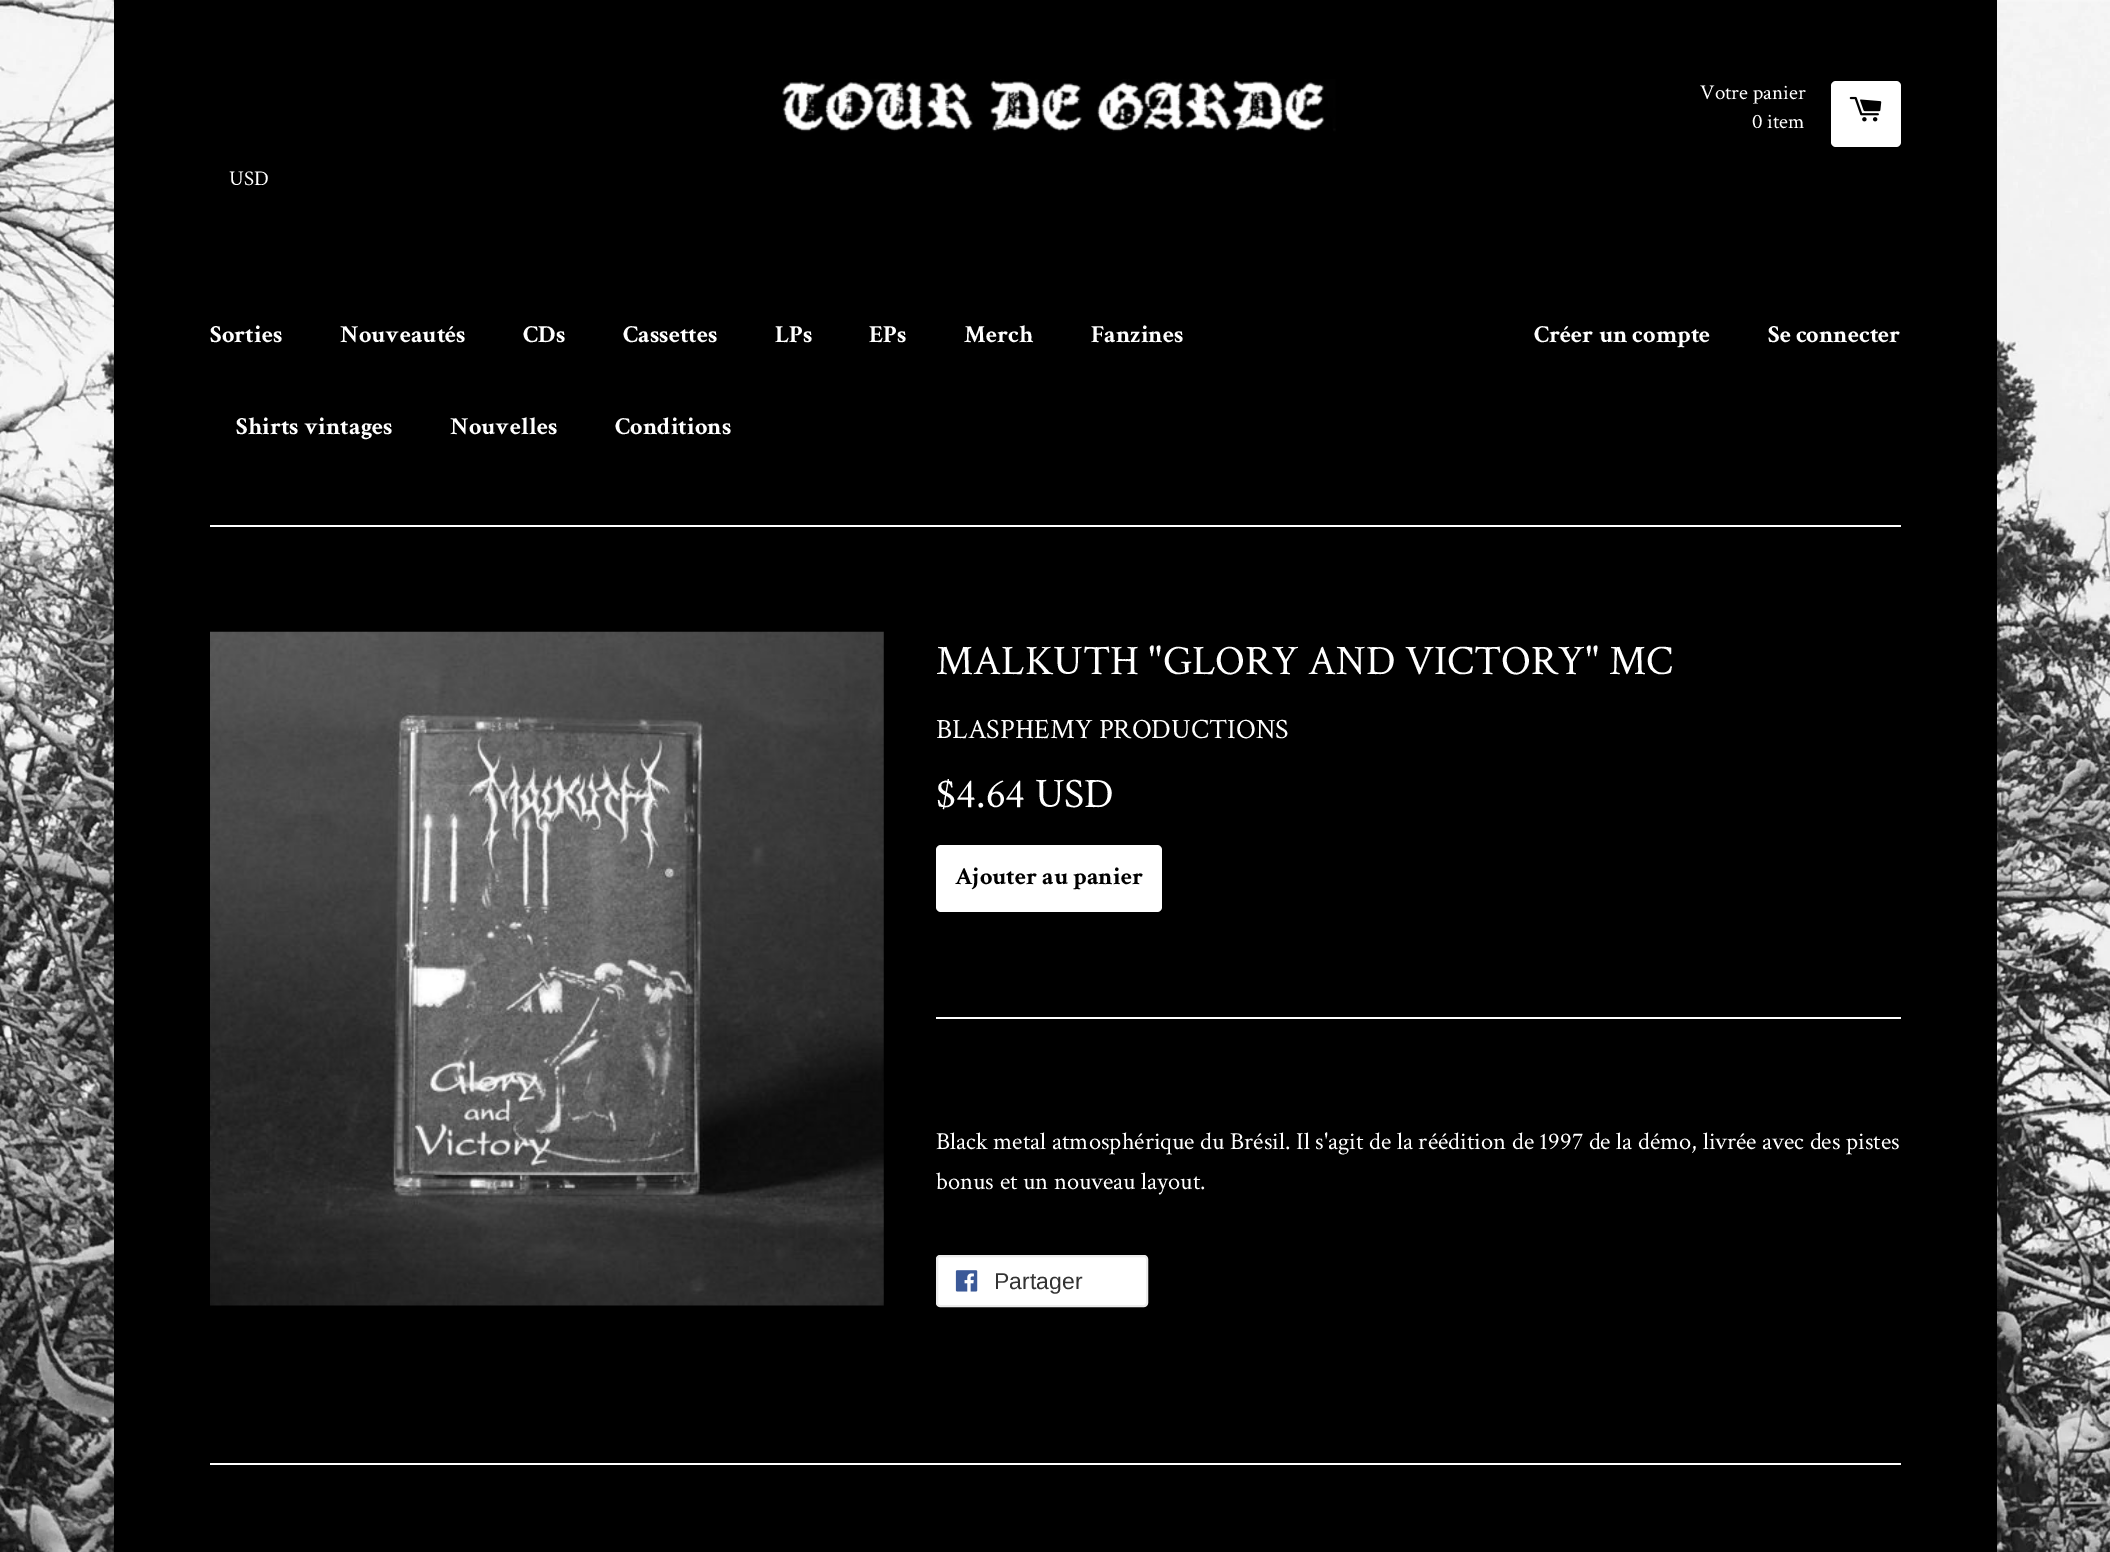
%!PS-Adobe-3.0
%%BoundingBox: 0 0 2110 1552
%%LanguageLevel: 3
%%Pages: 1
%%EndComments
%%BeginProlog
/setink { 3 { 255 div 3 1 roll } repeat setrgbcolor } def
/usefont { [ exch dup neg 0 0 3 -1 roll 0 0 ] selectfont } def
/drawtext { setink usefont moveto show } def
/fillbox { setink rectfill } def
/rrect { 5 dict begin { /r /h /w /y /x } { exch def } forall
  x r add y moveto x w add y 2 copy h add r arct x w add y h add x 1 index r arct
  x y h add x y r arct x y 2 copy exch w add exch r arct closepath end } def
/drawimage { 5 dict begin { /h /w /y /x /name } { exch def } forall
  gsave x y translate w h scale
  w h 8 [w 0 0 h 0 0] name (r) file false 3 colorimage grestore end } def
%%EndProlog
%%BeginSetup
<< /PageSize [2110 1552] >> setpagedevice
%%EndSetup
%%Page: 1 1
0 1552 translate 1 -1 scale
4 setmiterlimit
0 0 2110 1552 255 255 255 fillbox
(assets/img1.rgb) 0 0 2110 1552 drawimage
114 0 1883 1552 0 0 0 fillbox
(assets/img2.rgb) 782 79 554 53 drawimage
(Votre panier) 1700 99 /CrimsonText-Regular 21 255 255 255 drawtext
(0 item) 1752 128 /CrimsonText-Regular 21 255 255 255 drawtext
1831 81 70 66 5 rrect fill
(assets/img3.rgb) 1849 96 33 26 drawimage
(USD) 229 185 /CrimsonText-Regular 21 255 255 255 drawtext
(Sorties) 210 342 /CrimsonText-Bold 24.5 255 255 255 drawtext
(Nouveautés) 340 342 /CrimsonText-Bold 24.5 255 255 255 drawtext
(CDs) 523 342 /CrimsonText-Bold 24.5 255 255 255 drawtext
(Cassettes) 623 342 /CrimsonText-Bold 24.5 255 255 255 drawtext
(LPs) 775 342 /CrimsonText-Bold 24.5 255 255 255 drawtext
(EPs) 869 342 /CrimsonText-Bold 24.5 255 255 255 drawtext
(Merch) 964 342 /CrimsonText-Bold 24.5 255 255 255 drawtext
(Fanzines) 1091 342 /CrimsonText-Bold 24.5 255 255 255 drawtext
(Shirts vintages) 236 434 /CrimsonText-Bold 24.5 255 255 255 drawtext
(Nouvelles) 450 434 /CrimsonText-Bold 24.5 255 255 255 drawtext
(Conditions) 615 434 /CrimsonText-Bold 24.5 255 255 255 drawtext
(Créer un compte) 1534 342 /CrimsonText-Bold 24.5 255 255 255 drawtext
(Se connecter) 1768 342 /CrimsonText-Bold 24.5 255 255 255 drawtext
210 525 1691 2 255 255 255 fillbox
(assets/img4.rgb) 210 631 674 675 drawimage
(MALKUTH "GLORY AND VICTORY" MC) 936 674 /CrimsonText-Regular 42 255 255 255 drawtext
(BLASPHEMY PRODUCTIONS) 936 738 /CrimsonText-Regular 28 255 255 255 drawtext
($4.64 USD) 936 807 /CrimsonText-Regular 42 255 255 255 drawtext
936 845 226 67 5 rrect fill
(Ajouter au panier) 955 884 /CrimsonText-Bold 24.5 0 0 0 drawtext
936 1017 965 2 255 255 255 fillbox
(Black metal atmosphérique du Brésil. Il s'agit de la réédition de 1997 de la démo, livrée avec des pistes) 936 1149 /CrimsonText-Regular 24.5 255 255 255 drawtext
(bonus et un nouveau layout.) 936 1189 /CrimsonText-Regular 24.5 255 255 255 drawtext
937 1256 210 50 3 rrect gsave fill grestore
236 236 236 setink
2 setlinewidth
stroke
(assets/img5.rgb) 955 1270 23 22 drawimage
(Partager) 994 1289 /LiberationSans-Regular 23 51 51 51 drawtext
210 1463 1691 2 255 255 255 fillbox
showpage
%%EOF
